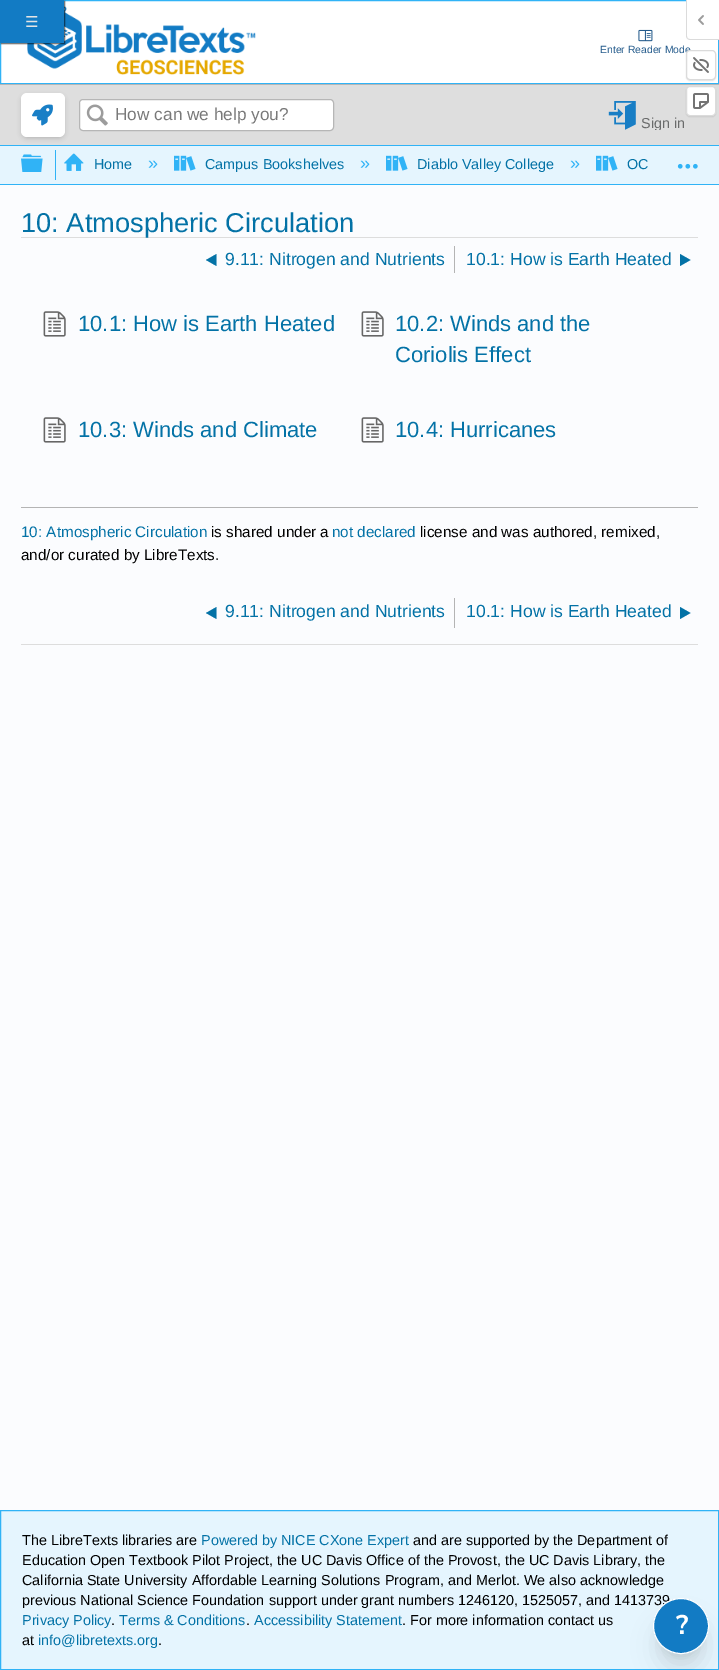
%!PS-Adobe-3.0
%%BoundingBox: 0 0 719 1670
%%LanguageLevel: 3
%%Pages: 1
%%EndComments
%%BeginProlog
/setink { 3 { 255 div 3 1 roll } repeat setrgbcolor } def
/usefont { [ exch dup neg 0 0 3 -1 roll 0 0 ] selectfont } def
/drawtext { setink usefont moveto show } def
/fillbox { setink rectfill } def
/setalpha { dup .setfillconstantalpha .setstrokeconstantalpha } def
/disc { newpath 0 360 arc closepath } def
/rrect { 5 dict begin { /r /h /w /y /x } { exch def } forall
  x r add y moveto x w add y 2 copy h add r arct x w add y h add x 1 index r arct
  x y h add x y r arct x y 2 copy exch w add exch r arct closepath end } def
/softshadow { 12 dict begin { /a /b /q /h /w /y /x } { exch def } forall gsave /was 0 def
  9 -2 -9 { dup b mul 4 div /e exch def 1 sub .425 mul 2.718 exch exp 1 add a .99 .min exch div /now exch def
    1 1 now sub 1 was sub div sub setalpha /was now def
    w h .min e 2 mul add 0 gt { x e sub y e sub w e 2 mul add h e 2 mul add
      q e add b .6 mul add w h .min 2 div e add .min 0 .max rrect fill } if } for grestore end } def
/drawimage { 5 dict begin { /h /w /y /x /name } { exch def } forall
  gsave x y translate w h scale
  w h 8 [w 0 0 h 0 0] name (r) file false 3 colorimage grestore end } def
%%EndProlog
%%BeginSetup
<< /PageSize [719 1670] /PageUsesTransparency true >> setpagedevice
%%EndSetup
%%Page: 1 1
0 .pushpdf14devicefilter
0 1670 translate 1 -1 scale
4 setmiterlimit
0 0 719 1670 251 252 254 fillbox
255 255 255 setink
0.5 0.5 moveto 718.5 0.5 lineto 718.5 83.5 lineto 0.5 83.5 lineto closepath gsave fill grestore
48 179 246 setink
stroke
(assets/img4.rgb) 27 6 229 69 drawimage
0 0 0 setink
1 1 64 43 0 0.5 0.6 softshadow
0 0 64 43 18 123 196 fillbox
(☰) 25 27 /DejaVuSans-Regular 15 229 229 229 drawtext
255 255 255 setink
687 0 moveto 719 0 lineto 719 39 lineto 690 39 lineto 688.5 39 687 37.5 687 36 curveto closepath fill
219 219 219 setink
686 0 moveto 719 0 lineto 719 40 lineto 690 40 lineto 688 40 686 38 686 36 curveto closepath 687 0 moveto 719 0 lineto 719 39 lineto 690 39 lineto 688 39 687 38 687 36 curveto closepath eofill
(assets/img1.rgb) 698 15 6 10 drawimage
0 0 0 setink
686 51 30 30 4 0.5 0.1 softshadow
(Enter Reader Mode) 600 53 /LiberationSans-Regular 10.4 35 90 139 drawtext
255 255 255 setink
686.5 50.5 29 29 3.5 rrect gsave fill grestore
219 219 219 setink
stroke
(assets/img2.rgb) 693 57 16 16 drawimage
0 85 719 60 222 222 222 fillbox
0 84 719 1 182 182 182 fillbox
0 0 0 setink
686 87 30 30 4 0.5 0.1 softshadow
255 255 255 setink
686.5 86.5 29 29 3.5 rrect gsave fill grestore
219 219 219 setink
stroke
(assets/img3.rgb) 693 93 16 16 drawimage
(assets/img5.rgb) 638 29 15 13 drawimage
0 146 719 38 229 245 254 fillbox
0 145 719 1 48 179 246 fillbox
8 8 8 setink
22 96 42 42 5 2.5 0.2 softshadow
255 255 255 setink
21 93 44 44 6 rrect fill
(assets/img6.rgb) 32 104 21 22 drawimage
79.5 99.5 254 31 3.5 rrect gsave fill grestore
182 182 182 setink
stroke
(assets/img7.rgb) 86 104 22 22 drawimage
(How can we help you?) 115 120 /LiberationSans-Regular 17.25 121 121 121 drawtext
(assets/img8.rgb) 608 101 28 29 drawimage
gsave
607 100 84 30 rectclip
(Sign in) 641 128 /LiberationSans-Regular 14.4 106 107 107 drawtext
grestore
0 184 719 1 48 179 246 fillbox
(assets/img9.rgb) 21 154 22 18 drawimage
55 150 1 30 48 179 246 fillbox
(assets/img10.rgb) 64 153 20 18 drawimage
(Home) 94 169 /LiberationSans-Regular 14.4 3 114 166 drawtext
(») 148 169 /LiberationSans-Regular 18 48 179 246 drawtext
(assets/img11.rgb) 174 155 22 16 drawimage
(Campus Bookshelves) 205 169 /LiberationSans-Regular 14.4 3 114 166 drawtext
(») 360 169 /LiberationSans-Regular 18 48 179 246 drawtext
(assets/img11.rgb) 386 155 22 16 drawimage
(Diablo Valley College) 417 169 /LiberationSans-Regular 14.4 3 114 166 drawtext
(») 570 169 /LiberationSans-Regular 18 48 179 246 drawtext
(assets/img11.rgb) 596 155 22 16 drawimage
(OC) 627 169 /LiberationSans-Regular 14.4 3 114 166 drawtext
(assets/img12.rgb) 677 163 21 6 drawimage
21 237 677 1 221 221 221 fillbox
(10: Atmospheric Circulation) 21 232 /LiberationSans-Regular 27.25 3 114 166 drawtext
454 246 1 27 180 180 180 fillbox
3 114 166 setink
216.5 254 moveto 216.5 266 lineto 206 260 lineto closepath fill
(9.11: Nitrogen and Nutrients) 225 265 /LiberationSans-Regular 17.6 3 114 166 drawtext
(10.1: How is Earth Heated) 466 265 /LiberationSans-Regular 17.6 3 114 166 drawtext
680 254 moveto 680 266 lineto 690.5 260 lineto closepath fill
(assets/img13.rgb) 43 311 23 26 drawimage
(10.1: How is Earth Heated) 78 331 /LiberationSans-Regular 22 3 114 166 drawtext
(assets/img13.rgb) 361 311 23 26 drawimage
(10.2: Winds and the) 395 331 /LiberationSans-Regular 22 3 114 166 drawtext
(Coriolis Effect) 395 362 /LiberationSans-Regular 22 3 114 166 drawtext
(assets/img13.rgb) 43 417 23 26 drawimage
(10.3: Winds and Climate) 78 437 /LiberationSans-Regular 22 3 114 166 drawtext
(assets/img13.rgb) 361 417 23 26 drawimage
(10.4: Hurricanes) 395 437 /LiberationSans-Regular 22 3 114 166 drawtext
21 507 677 1 180 180 180 fillbox
(10: Atmospheric Circulation) 21 537 /LiberationSans-Regular 15.25 3 114 166 drawtext
(is shared under a) 211 537 /LiberationSans-Regular 15.25 0 0 0 drawtext
(not declared) 332 537 /LiberationSans-Regular 15.25 3 114 166 drawtext
(license and was authored, remixed,) 420 537 /LiberationSans-Regular 15.25 0 0 0 drawtext
(and/or curated by LibreTexts.) 21 560 /LiberationSans-Regular 15.25 0 0 0 drawtext
21 644 677 1 221 221 221 fillbox
454 598 1 30 180 180 180 fillbox
3 114 166 setink
216.5 607 moveto 216.5 619 lineto 206 613 lineto closepath fill
(9.11: Nitrogen and Nutrients) 225 617 /LiberationSans-Regular 17.6 3 114 166 drawtext
(10.1: How is Earth Heated) 466 617 /LiberationSans-Regular 17.6 3 114 166 drawtext
680 607 moveto 680 619 lineto 690.5 613 lineto closepath fill
229 245 254 setink
0.5 1510.5 moveto 718.5 1510.5 lineto 718.5 1669.5 lineto 0.5 1669.5 lineto closepath gsave fill grestore
48 179 246 setink
stroke
(The LibreTexts libraries are) 22 1545 /LiberationSans-Regular 14.4 0 0 0 drawtext
(Powered by NICE CXone Expert) 201 1545 /LiberationSans-Regular 14.4 3 114 166 drawtext
(and are supported by the Department of) 413 1545 /LiberationSans-Regular 14.4 0 0 0 drawtext
(Education Open Textbook Pilot Project, the UC Davis Office of the Provost, the UC Davis Library, the) 22 1565 /LiberationSans-Regular 14.4 0 0 0 drawtext
(California State University Affordable Learning Solutions Program, and Merlot. We also acknowledge) 22 1585 /LiberationSans-Regular 14.4 0 0 0 drawtext
(previous National Science Foundation support under grant numbers 1246120, 1525057, and 1413739) 22 1605 /LiberationSans-Regular 14.4 0 0 0 drawtext
(Privacy Policy) 22 1625 /LiberationSans-Regular 14.4 3 114 166 drawtext
(.) 111 1625 /LiberationSans-Regular 14.4 0 0 0 drawtext
(Terms & Conditions) 119 1625 /LiberationSans-Regular 14.4 3 114 166 drawtext
(.) 246 1625 /LiberationSans-Regular 14.4 0 0 0 drawtext
(Accessibility Statement) 254 1625 /LiberationSans-Regular 14.4 3 114 166 drawtext
(. For more information contact us) 402 1625 /LiberationSans-Regular 14.4 0 0 0 drawtext
(at) 22 1645 /LiberationSans-Regular 14.4 0 0 0 drawtext
(info@libretexts.org) 38 1645 /LiberationSans-Regular 14.4 3 114 166 drawtext
(.) 158 1645 /LiberationSans-Regular 14.4 0 0 0 drawtext
659 1612 44 44 22 5 0.1 softshadow
658 1623 46 46 23 12.5 0.1 softshadow
18 123 196 setink
681 1626 27.5 disc gsave fill grestore
255 255 255 setink
stroke
(?) 676 1634 /NunitoSans-Bold 27 255 255 255 drawtext
.poppdf14devicefilter showpage
%%EOF
